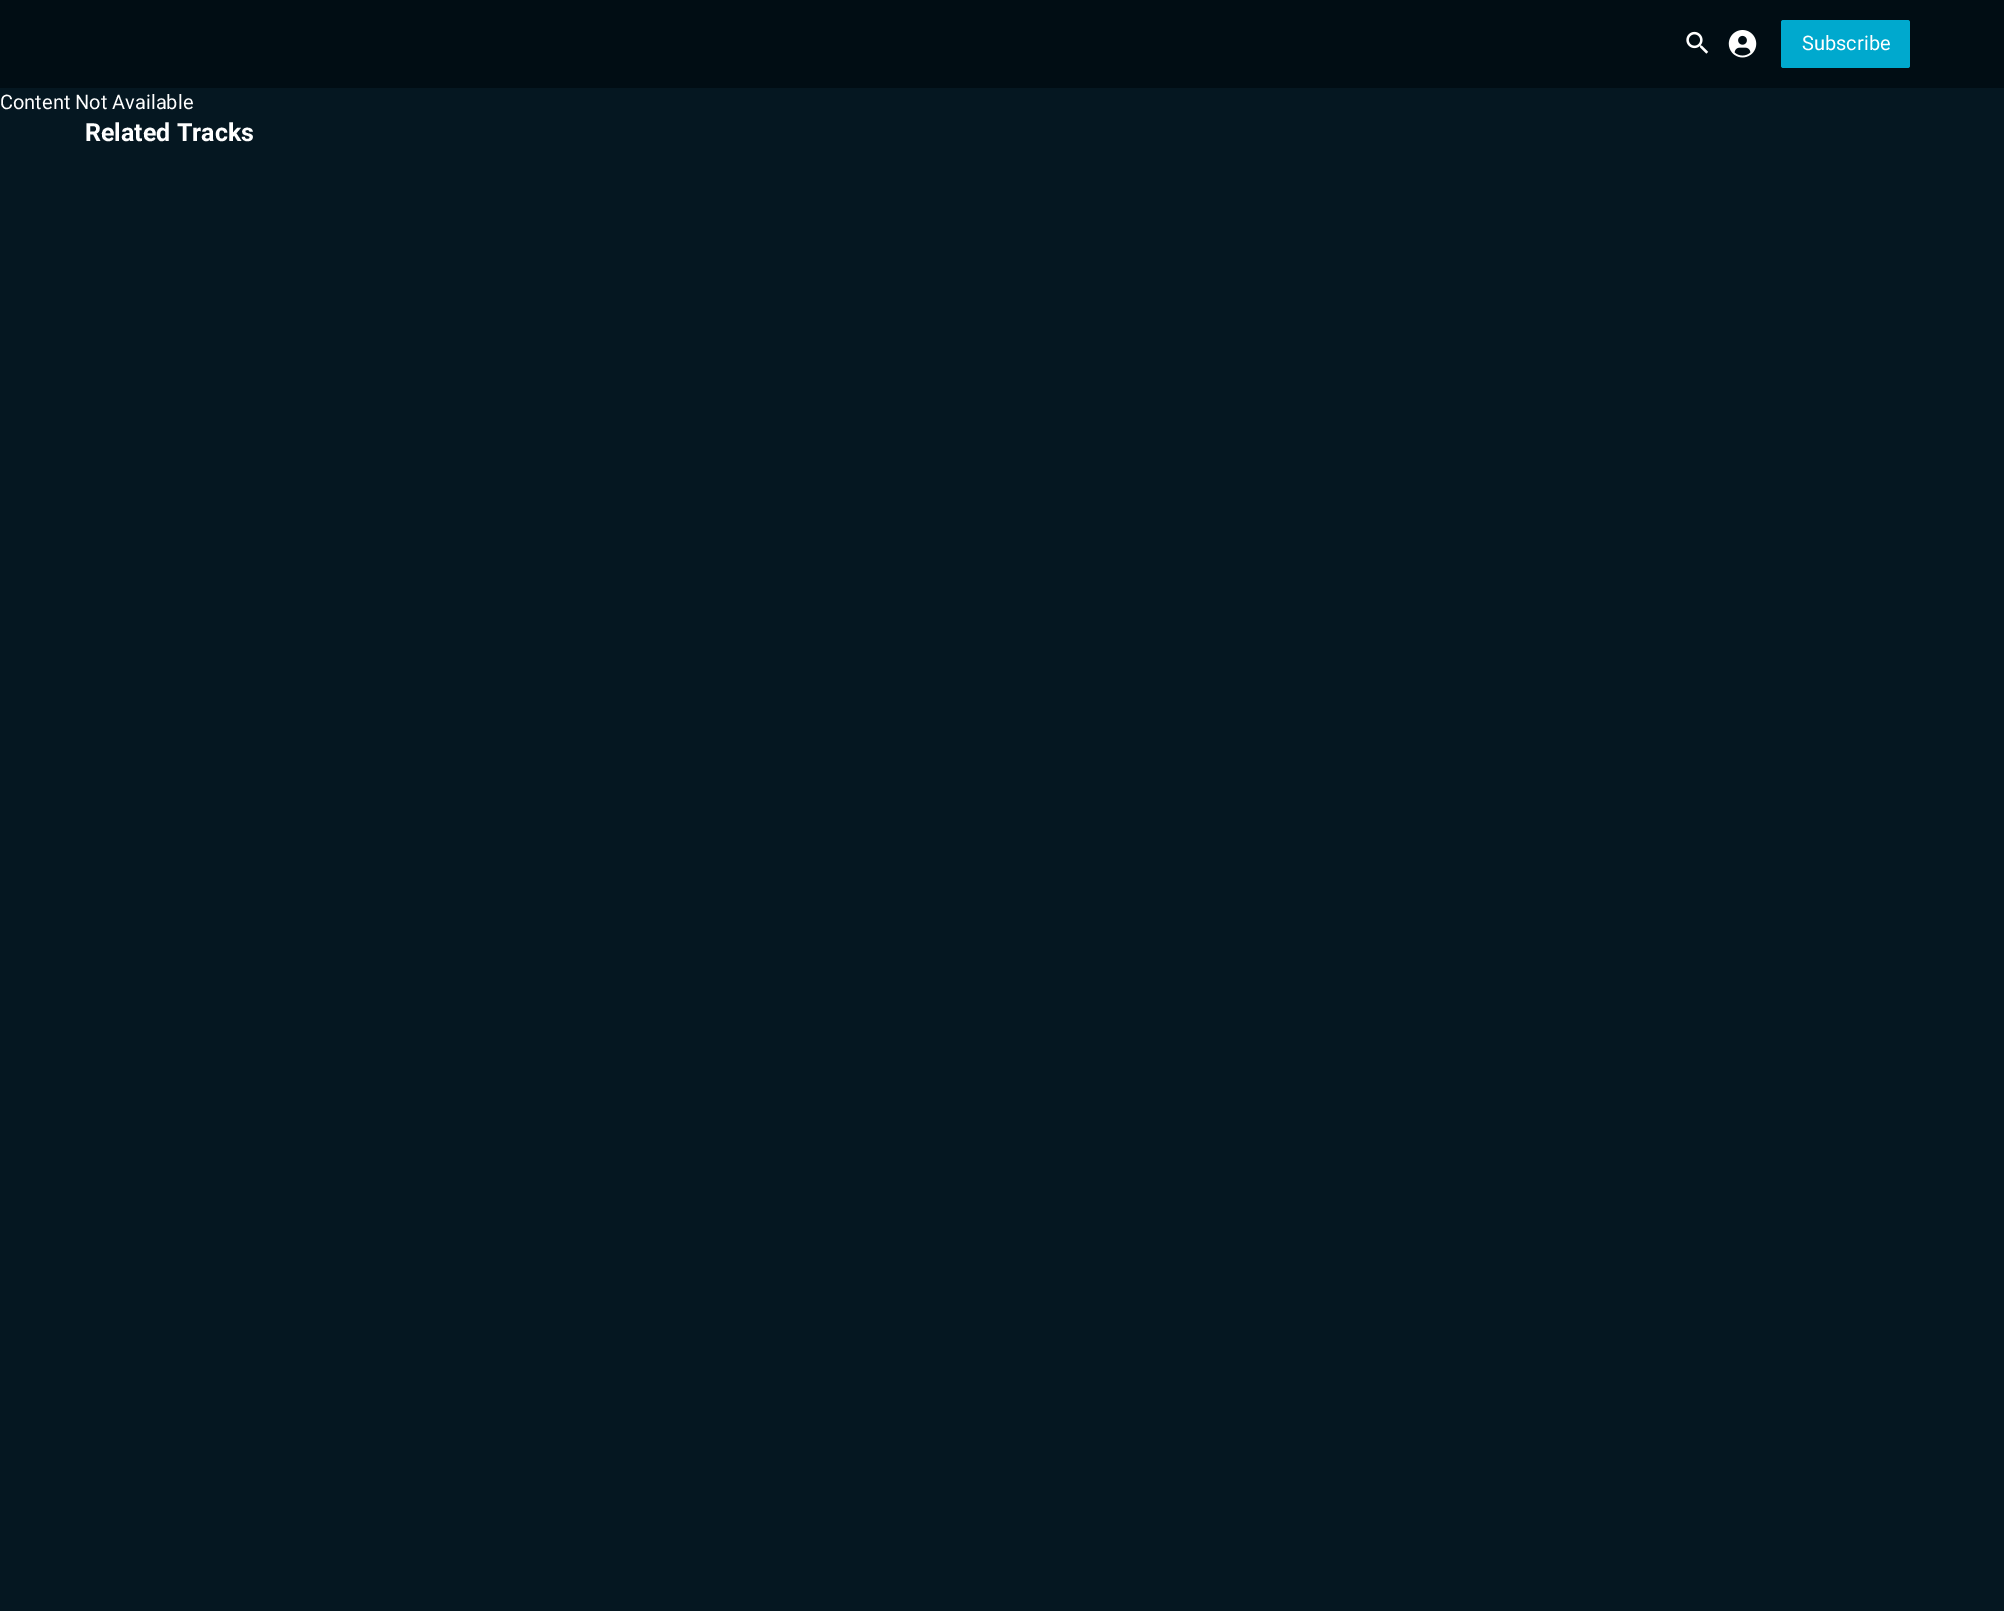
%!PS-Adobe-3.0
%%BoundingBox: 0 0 2004 1611
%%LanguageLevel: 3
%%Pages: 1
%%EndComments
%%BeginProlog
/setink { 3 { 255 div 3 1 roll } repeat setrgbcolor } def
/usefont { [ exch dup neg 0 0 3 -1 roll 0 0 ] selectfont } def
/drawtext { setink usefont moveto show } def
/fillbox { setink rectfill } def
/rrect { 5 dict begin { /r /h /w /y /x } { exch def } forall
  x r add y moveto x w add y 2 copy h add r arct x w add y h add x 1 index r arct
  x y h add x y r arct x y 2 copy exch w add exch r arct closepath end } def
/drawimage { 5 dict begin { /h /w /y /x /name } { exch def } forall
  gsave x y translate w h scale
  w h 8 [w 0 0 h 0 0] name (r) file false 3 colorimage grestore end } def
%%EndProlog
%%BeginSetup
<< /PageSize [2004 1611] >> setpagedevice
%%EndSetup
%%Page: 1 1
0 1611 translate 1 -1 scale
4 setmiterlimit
0 0 2004 1611 5 23 33 fillbox
0 0 2004 88 1 13 20 fillbox
(assets/img1.rgb) 1686 31 23 23 drawimage
(assets/img2.rgb) 1728 30 29 28 drawimage
0 169 206 setink
1781 20 129 48 2.5 rrect fill
(Subscribe) 1802 50 /Roboto-Regular 20 255 255 255 drawtext
(Content Not Available) 0 109 /Roboto-Regular 20 255 255 255 drawtext
(Related Tracks) 85 141 /Roboto-Bold 25 255 255 255 drawtext
showpage
%%EOF
